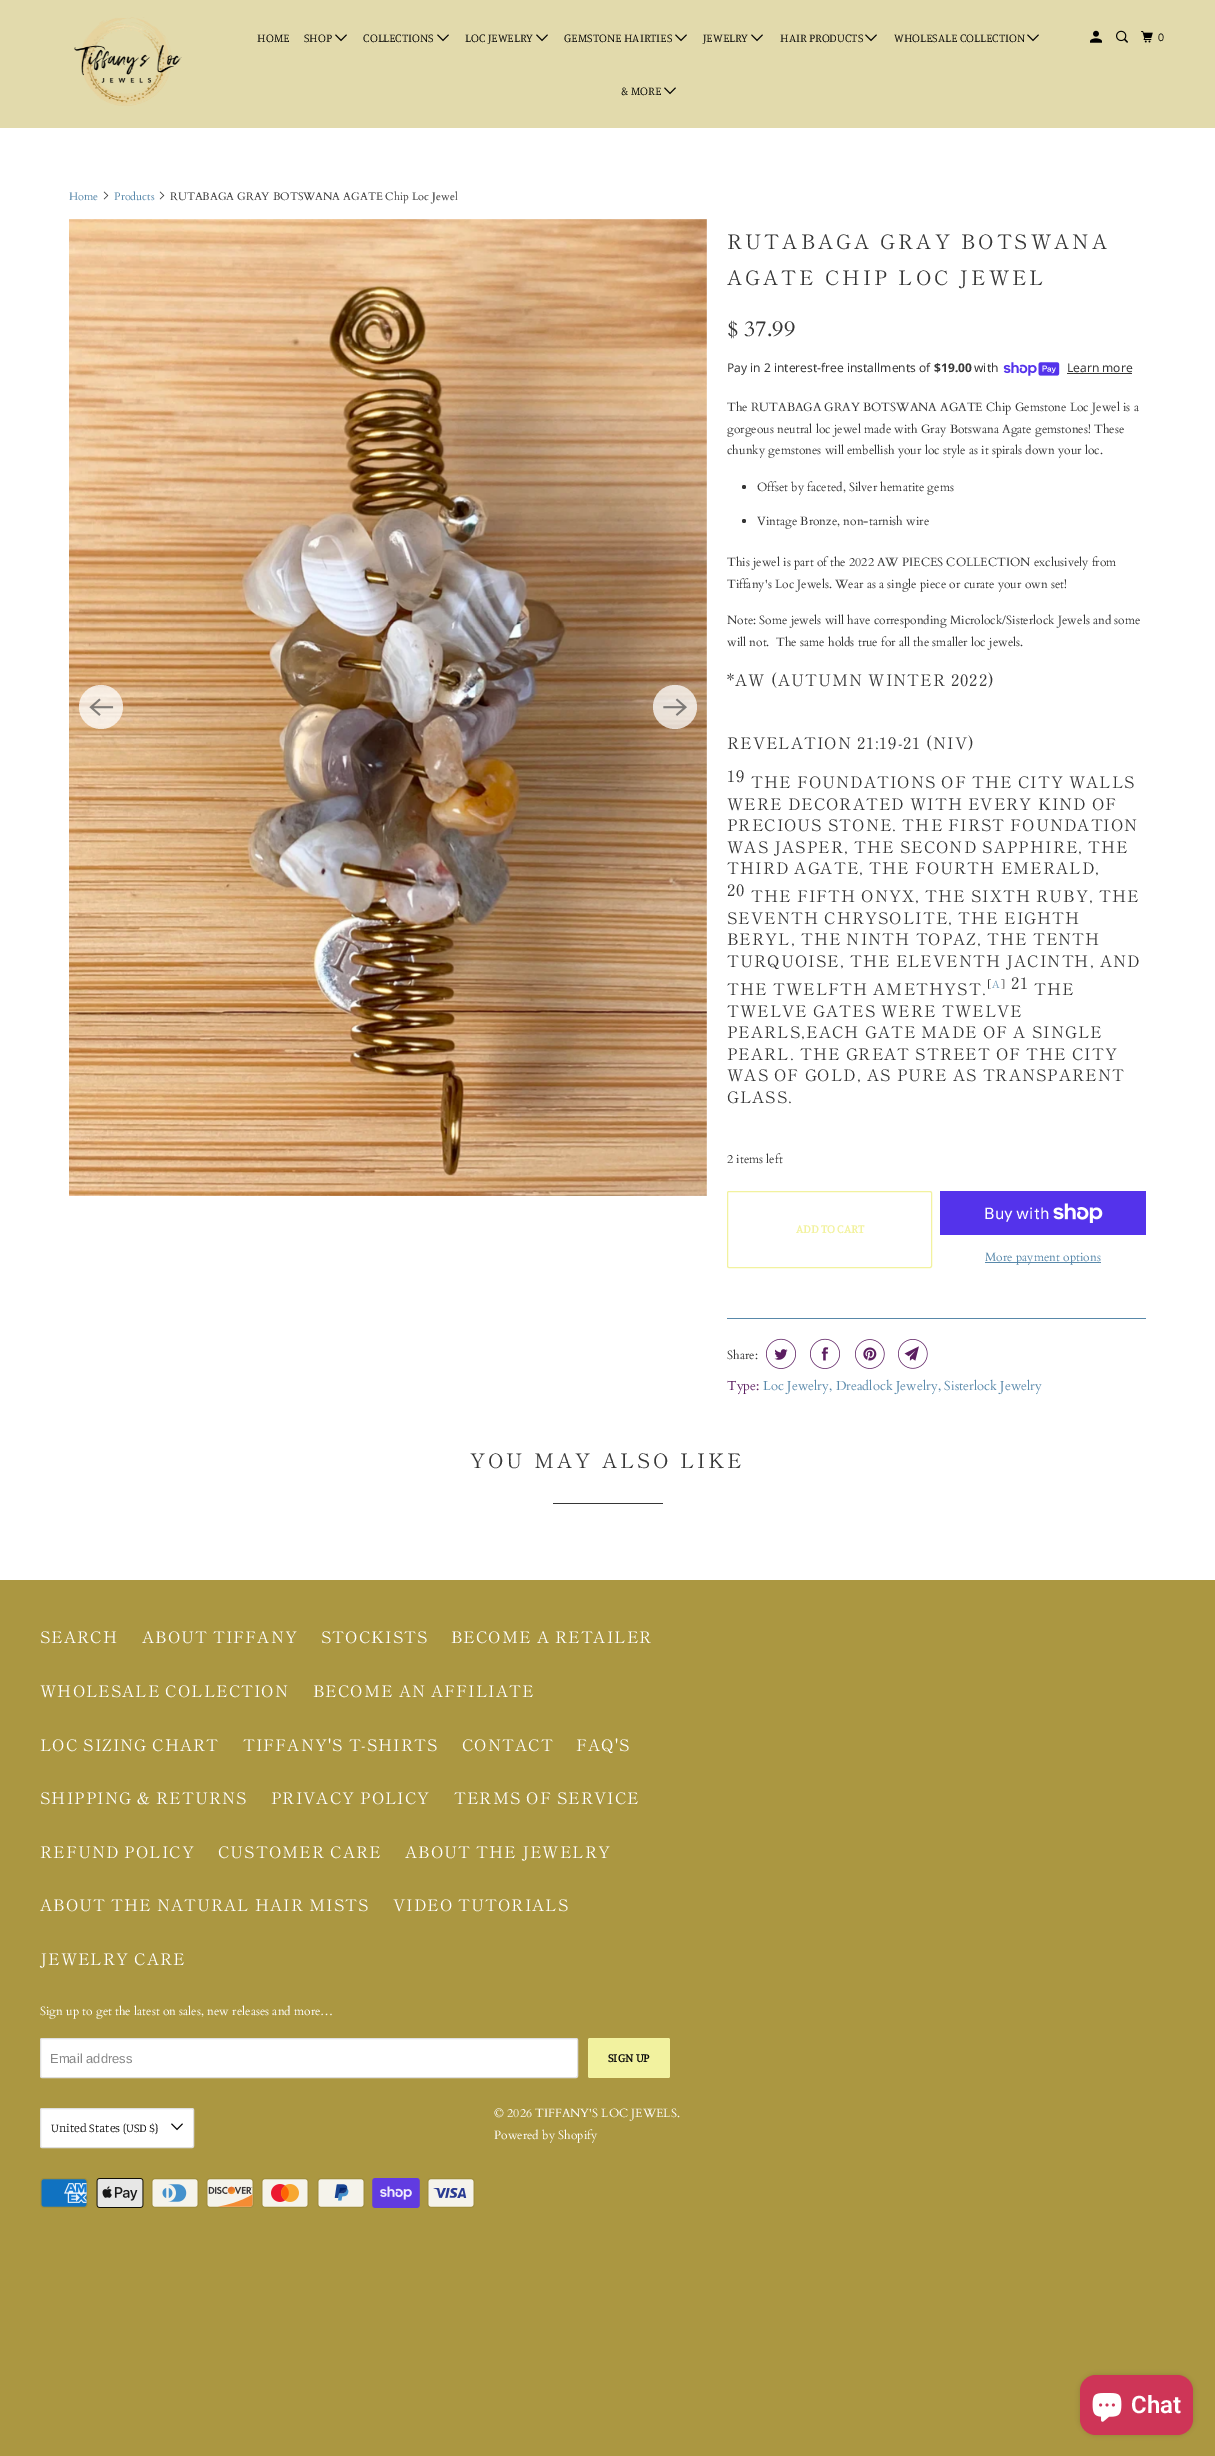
%!PS-Adobe-3.0
%%BoundingBox: 0 0 1215 2456
%%LanguageLevel: 3
%%Pages: 1
%%EndComments
%%BeginProlog
/setink { 3 { 255 div 3 1 roll } repeat setrgbcolor } def
/usefont { [ exch dup neg 0 0 3 -1 roll 0 0 ] selectfont } def
/drawtext { setink usefont moveto show } def
/fillbox { setink rectfill } def
/setalpha { dup .setfillconstantalpha .setstrokeconstantalpha } def
/disc { newpath 0 360 arc closepath } def
/rrect { 5 dict begin { /r /h /w /y /x } { exch def } forall
  x r add y moveto x w add y 2 copy h add r arct x w add y h add x 1 index r arct
  x y h add x y r arct x y 2 copy exch w add exch r arct closepath end } def
/softshadow { 12 dict begin { /a /b /q /h /w /y /x } { exch def } forall gsave /was 0 def
  9 -2 -9 { dup b mul 4 div /e exch def 1 sub .425 mul 2.718 exch exp 1 add a .99 .min exch div /now exch def
    1 1 now sub 1 was sub div sub setalpha /was now def
    w h .min e 2 mul add 0 gt { x e sub y e sub w e 2 mul add h e 2 mul add
      q e add b .6 mul add w h .min 2 div e add .min 0 .max rrect fill } if } for grestore end } def
/drawimage { 5 dict begin { /h /w /y /x /name } { exch def } forall
  gsave x y translate w h scale
  w h 8 [w 0 0 h 0 0] name (r) file false 3 colorimage grestore end } def
%%EndProlog
%%BeginSetup
<< /PageSize [1215 2456] /PageUsesTransparency true >> setpagedevice
%%EndSetup
%%Page: 1 1
0 .pushpdf14devicefilter
0 2456 translate 1 -1 scale
4 setmiterlimit
0 0 1215 2456 171 151 65 fillbox
0 128 1215 1452 255 255 255 fillbox
0 0 1215 128 226 218 172 fillbox
(assets/img1.rgb) 74 17 108 89 drawimage
(HOME) 257 42 /Manuale-Light 12 0 0 0 drawtext
(SHOP) 304 42 /Manuale-Light 12 0 0 0 drawtext
(assets/img2.rgb) 335 34 12 8 drawimage
(COLLECTIONS) 363 42 /Manuale-Light 12 0 0 0 drawtext
(assets/img2.rgb) 437 34 12 8 drawimage
(LOC JEWELRY) 465 42 /Manuale-Light 12 0 0 0 drawtext
(assets/img2.rgb) 536 34 12 8 drawimage
(GEMSTONE HAIRTIES) 564 42 /Manuale-Light 12 0 0 0 drawtext
(assets/img2.rgb) 675 34 12 8 drawimage
(JEWELRY) 703 42 /Manuale-Light 12 0 0 0 drawtext
(assets/img2.rgb) 751 34 12 8 drawimage
(HAIR PRODUCTS) 780 42 /Manuale-Light 12 0 0 0 drawtext
(assets/img2.rgb) 865 34 12 8 drawimage
(WHOLESALE COLLECTION) 894 42 /Manuale-Light 12 0 0 0 drawtext
(assets/img2.rgb) 1027 34 12 8 drawimage
(& MORE) 621 95 /Manuale-Light 12 0 0 0 drawtext
(assets/img2.rgb) 664 87 12 8 drawimage
(assets/img3.rgb) 1090 30 12 13 drawimage
(assets/img4.rgb) 1116 30 12 13 drawimage
(assets/img5.rgb) 1141 31 12 12 drawimage
(0) 1158 41 /Manuale-Light 12 0 0 0 drawtext
(Home) 69 200 /Cardo-Regular 11 88 136 170 drawtext
(assets/img6.rgb) 103 191 6 9 drawimage
(Products) 114 200 /Cardo-Regular 11 88 136 170 drawtext
(assets/img6.rgb) 159 191 6 9 drawimage
(RUTABAGA GRAY BOTSWANA AGATE Chip Loc Jewel) 170 200 /Cardo-Regular 11 54 54 54 drawtext
(assets/img7.rgb) 69 219 638 977 drawimage
0.75 setalpha
255 255 255 setink
101 707 22 disc fill
1 setalpha
(assets/img8.rgb) 89 698 25 18 drawimage
0.75 setalpha
675 707 22 disc fill
1 setalpha
(assets/img9.rgb) 663 698 24 18 drawimage
/ShipporiMincho-Regular 20 usefont
54 54 54 setink
727 249 moveto 3 0 (RUTABAGA GRAY BOTSWANA) ashow
727 285 moveto 3 0 (AGATE CHIP LOC JEWEL) ashow
($ 37.99) 727 336 /Cardo-Regular 22 54 54 54 drawtext
(Pay in 2 interest-free installments of) 727 372 /NotoSans-Regular 12 54 54 54 drawtext
($19.00) 934 372 /NotoSans-Bold 12 54 54 54 drawtext
(with) 974 372 /NotoSans-Regular 12 54 54 54 drawtext
(assets/img10.rgb) 1003 362 57 14 drawimage
(Learn more) 1067 372 /NotoSans-Regular 12 54 54 54 drawtext
1067 373 65 1 54 54 54 fillbox
(The RUTABAGA GRAY BOTSWANA AGATE Chip Gemstone Loc Jewel is a) 727 411 /Cardo-Regular 12 54 54 54 drawtext
(gorgeous neutral loc jewel made with Gray Botswana Agate gemstones! These) 727 433 /Cardo-Regular 12 54 54 54 drawtext
(chunky gemstones will embellish your loc style as it spirals down your loc.) 727 454 /Cardo-Regular 12 54 54 54 drawtext
744 487 2 disc fill
(Offset by faceted, Silver hematite gems) 757 491 /Cardo-Regular 12 54 54 54 drawtext
744 521 2 disc fill
(Vintage Bronze, non-tarnish wire) 757 525 /Cardo-Regular 12 54 54 54 drawtext
(This jewel is part of the 2022 AW PIECES COLLECTION exclusively from) 727 566 /Cardo-Regular 12 54 54 54 drawtext
(Tiffany's Loc Jewels. Wear as a single piece or curate your own set!) 727 588 /Cardo-Regular 12 54 54 54 drawtext
(Note: Some jewels will have corresponding Microlock/Sisterlock Jewels and some) 727 624 /Cardo-Regular 12 54 54 54 drawtext
(will not.  The same holds true for all the smaller loc jewels.) 727 646 /Cardo-Regular 12 54 54 54 drawtext
/ShipporiMincho-Regular 16 usefont
727 686 moveto 1 0 (*AW \(AUTUMN WINTER 2022\)) ashow
727 749 moveto 1 0 (REVELATION 21:19-21 \(NIV\)) ashow
727 782 moveto 1 0 (19) ashow
751 788 moveto 1 0 (THE FOUNDATIONS OF THE CITY WALLS) ashow
727 810 moveto 1 0 (WERE DECORATED WITH EVERY KIND OF) ashow
727 831 moveto 1 0 (PRECIOUS STONE. THE FIRST FOUNDATION) ashow
727 853 moveto 1 0 (WAS JASPER, THE SECOND SAPPHIRE, THE) ashow
727 874 moveto 1 0 (THIRD AGATE, THE FOURTH EMERALD,) ashow
727 896 moveto 1 0 (20) ashow
751 902 moveto 1 0 (THE FIFTH ONYX, THE SIXTH RUBY, THE) ashow
727 924 moveto 1 0 (SEVENTH CHRYSOLITE, THE EIGHTH) ashow
727 945 moveto 1 0 (BERYL, THE NINTH TOPAZ, THE TENTH) ashow
727 967 moveto 1 0 (TURQUOISE, THE ELEVENTH JACINTH, AND) ashow
727 995 moveto 1 0 (THE TWELFTH AMETHYST.) ashow
/ShipporiMincho-Regular 10 usefont
987 988 moveto 1 0 ([) ashow
88 136 170 setink
992 988 moveto 1 0 (A) ashow
54 54 54 setink
1001 988 moveto 1 0 (]) ashow
/ShipporiMincho-Regular 16 usefont
1011 989 moveto 1 0 (21) ashow
1034 995 moveto 1 0 (THE) ashow
727 1017 moveto 1 0 (TWELVE GATES WERE TWELVE) ashow
727 1038 moveto 1 0 (PEARLS,EACH GATE MADE OF A SINGLE) ashow
727 1060 moveto 1 0 (PEARL. THE GREAT STREET OF THE CITY) ashow
727 1081 moveto 1 0 (WAS OF GOLD, AS PURE AS TRANSPARENT) ashow
727 1103 moveto 1 0 (GLASS.) ashow
(2 items left) 727 1163 /Cardo-Regular 12 54 54 54 drawtext
242 242 159 setink
727.5 1191.5 204 76 1.5 rrect stroke
(ADD TO CART) 796 1233 /Manuale-Bold 12 242 242 159 drawtext
940 1191 206 44 84 51 235 fillbox
(Buy with) 984 1219 /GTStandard-Regular 16 255 255 255 drawtext
(assets/img11.rgb) 1053 1203 50 20 drawimage
985 1262 116 1 88 136 170 fillbox
(More payment options) 985 1261 /Cardo-Regular 12 88 136 170 drawtext
727 1318 419 1 88 136 170 fillbox
(Share:) 727 1359 /Cardo-Regular 12 54 54 54 drawtext
(assets/img12.rgb) 766 1338 30 31 drawimage
(assets/img13.rgb) 810 1338 30 31 drawimage
(assets/img14.rgb) 855 1339 30 30 drawimage
(assets/img15.rgb) 898 1339 30 30 drawimage
(Type:) 727 1390 /Cardo-Regular 13 92 30 97 drawtext
(Loc Jewelry, Dreadlock Jewelry, Sisterlock Jewelry) 763 1390 /Cardo-Regular 13 88 136 170 drawtext
/ShipporiMincho-Regular 20 usefont
54 54 54 setink
470 1468 moveto 3 0 (YOU MAY ALSO LIKE) ashow
553 1503 110 1 54 54 54 fillbox
/ShipporiMincho-Regular 16 usefont
255 255 255 setink
40 1643 moveto 1 0 (SEARCH) ashow
142 1643 moveto 1 0 (ABOUT TIFFANY) ashow
321 1643 moveto 1 0 (STOCKISTS) ashow
451 1643 moveto 1 0 (BECOME A RETAILER) ashow
40 1697 moveto 1 0 (WHOLESALE COLLECTION) ashow
313 1697 moveto 1 0 (BECOME AN AFFILIATE) ashow
40 1751 moveto 1 0 (LOC SIZING CHART) ashow
243 1751 moveto 1 0 (TIFFANY'S T-SHIRTS) ashow
462 1751 moveto 1 0 (CONTACT) ashow
576 1751 moveto 1 0 (FAQ'S) ashow
40 1804 moveto 1 0 (SHIPPING & RETURNS) ashow
271 1804 moveto 1 0 (PRIVACY POLICY) ashow
454 1804 moveto 1 0 (TERMS OF SERVICE) ashow
40 1858 moveto 1 0 (REFUND POLICY) ashow
218 1858 moveto 1 0 (CUSTOMER CARE) ashow
405 1858 moveto 1 0 (ABOUT THE JEWELRY) ashow
40 1911 moveto 1 0 (ABOUT THE NATURAL HAIR MISTS) ashow
393 1911 moveto 1 0 (VIDEO TUTORIALS) ashow
40 1965 moveto 1 0 (JEWELRY CARE) ashow
(Sign up to get the latest on sales, new releases and more…) 40 2015 /Cardo-Regular 12 255 255 255 drawtext
40.5 2038.5 537 39 1.5 rrect gsave fill grestore
223 223 223 setink
stroke
(Email address) 50 2063 /LiberationSans-Regular 13 136 136 136 drawtext
242 242 159 setink
588 2038 82 40 2 rrect fill
(SIGN UP) 608 2062 /Manuale-Bold 12 13 12 12 drawtext
255 255 255 setink
40.5 2108.5 153 39 1.5 rrect gsave fill grestore
223 223 223 setink
stroke
(United States \(USD $\)) 51 2132 /Manuale-Light 12 0 0 0 drawtext
(assets/img16.rgb) 171 2123 12 8 drawimage
(© 2026 TIFFANY'S LOC JEWELS.) 494 2117 /Cardo-Regular 12 255 255 255 drawtext
(Powered by Shopify) 494 2139 /Cardo-Regular 12 255 255 255 drawtext
(assets/img17.rgb) 40 2178 48 30 drawimage
(assets/img18.rgb) 96 2178 48 30 drawimage
(assets/img19.rgb) 151 2178 48 30 drawimage
(assets/img20.rgb) 206 2178 48 30 drawimage
(assets/img21.rgb) 261 2178 48 30 drawimage
(assets/img22.rgb) 317 2178 48 30 drawimage
(assets/img23.rgb) 372 2178 48 30 drawimage
(assets/img24.rgb) 427 2178 48 30 drawimage
0 0 0 setink
1080 2375 113 60 16 2.5 0.15 softshadow
206 53 87 setink
1080 2375 113 60 16 rrect fill
(assets/img25.rgb) 1092 2393 30 29 drawimage
(Chat) 1131 2413 /Roboto-SemiBold 24 255 255 255 drawtext
.poppdf14devicefilter showpage
%%EOF
